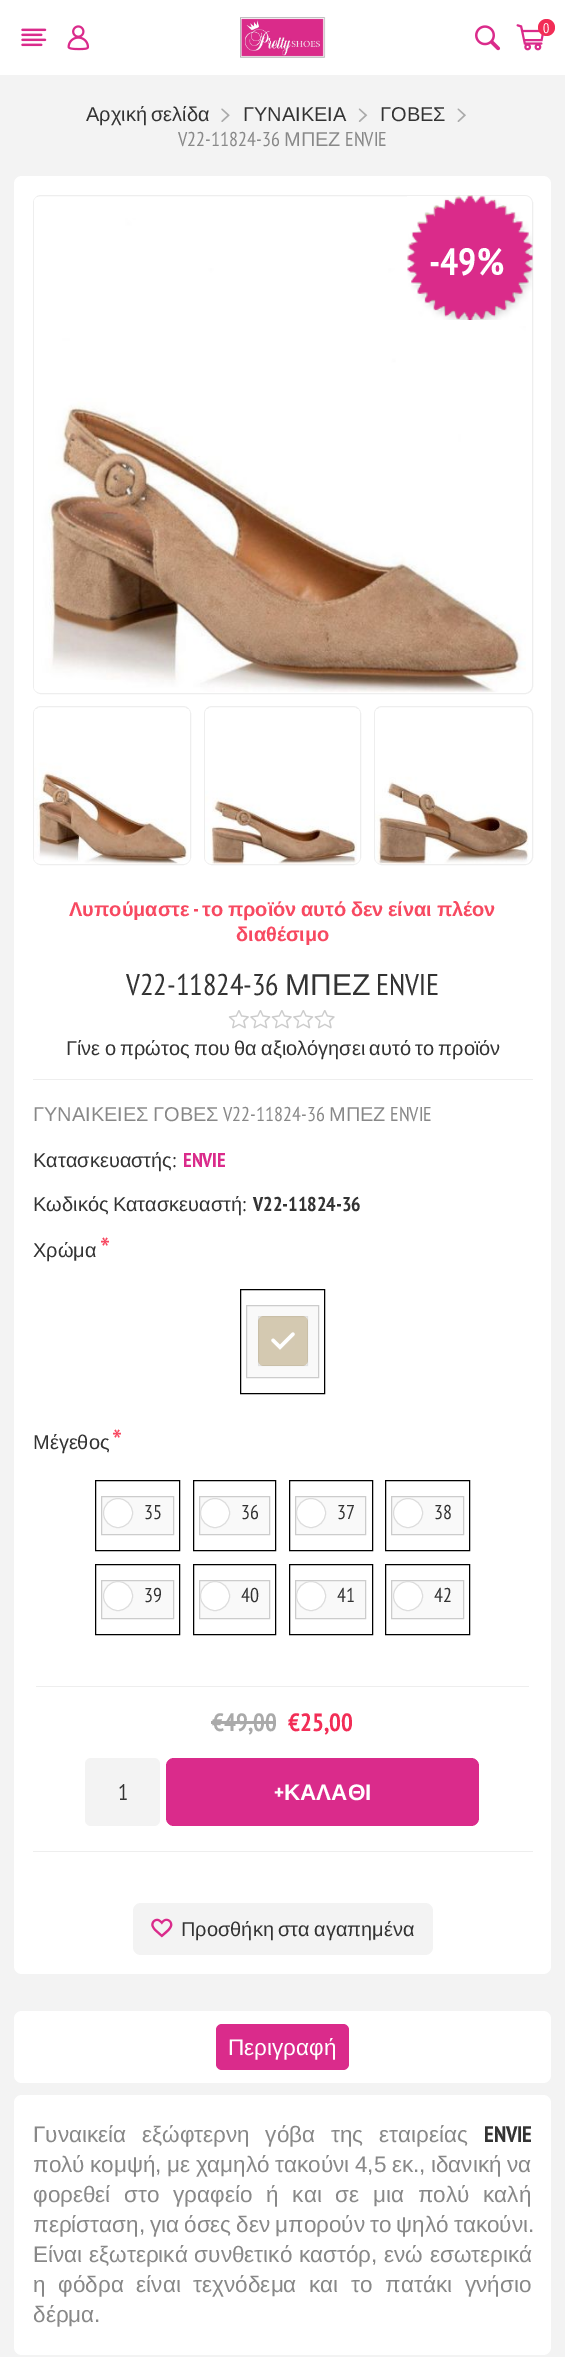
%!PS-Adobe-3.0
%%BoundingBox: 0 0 565 2357
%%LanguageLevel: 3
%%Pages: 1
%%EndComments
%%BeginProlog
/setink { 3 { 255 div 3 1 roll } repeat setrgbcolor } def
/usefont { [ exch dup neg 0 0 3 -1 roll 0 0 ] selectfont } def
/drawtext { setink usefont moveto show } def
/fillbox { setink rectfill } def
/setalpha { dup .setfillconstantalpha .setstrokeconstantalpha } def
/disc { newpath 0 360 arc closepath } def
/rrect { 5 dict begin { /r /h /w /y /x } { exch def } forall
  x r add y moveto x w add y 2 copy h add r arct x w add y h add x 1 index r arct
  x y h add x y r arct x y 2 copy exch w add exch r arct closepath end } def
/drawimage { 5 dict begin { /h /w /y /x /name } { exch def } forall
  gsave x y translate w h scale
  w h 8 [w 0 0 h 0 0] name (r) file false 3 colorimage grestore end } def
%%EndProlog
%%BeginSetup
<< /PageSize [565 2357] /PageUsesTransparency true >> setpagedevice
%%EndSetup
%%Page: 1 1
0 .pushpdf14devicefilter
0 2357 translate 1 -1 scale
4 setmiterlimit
0 0 565 2357 243 243 243 fillbox
0 0 565 75 255 255 255 fillbox
(assets/img1.rgb) 21 28 26 19 drawimage
(assets/img2.rgb) 67 25 23 26 drawimage
(assets/img3.rgb) 240 17 86 41 drawimage
(assets/img4.rgb) 475 25 26 26 drawimage
(assets/img5.rgb) 516 24 28 27 drawimage
242 45 86 setink
546.5 27.5 8.5 disc fill
(0) 543 33 /PTSansNarrow-Regular 14 255 255 255 drawtext
/LiberationSans-Regular 20 usefont
51 51 51 setink
86 121 moveto -1.25 0 32 (Αρχική σελίδα) widthshow
(assets/img6.rgb) 221 108 9 14 drawimage
(ΓΥΝΑΙΚΕΙΑ) 243 121 /LiberationSans-Regular 20 51 51 51 drawtext
(assets/img7.rgb) 358 108 10 14 drawimage
(ΓΟΒΕΣ) 380 121 /LiberationSans-Regular 20 51 51 51 drawtext
(assets/img8.rgb) 457 108 9 14 drawimage
(V22-11824-36) 178 146 /PTSansNarrow-Regular 20 136 136 136 drawtext
(ΜΠΕΖ) 284 146 /LiberationSans-Regular 20 136 136 136 drawtext
(ENVIE) 345 146 /PTSansNarrow-Regular 20 136 136 136 drawtext
255 255 255 setink
14 176 537 1798 8 rrect fill
238 238 238 setink
33.5 195.5 499 498 7.5 rrect stroke
(assets/img9.rgb) 34 197 492 496 drawimage
(assets/img10.rgb) 407 195 126 125 drawimage
(-49%) 429 275 /PTSansNarrow-Bold 38 255 255 255 drawtext
238 238 238 setink
33.5 706.5 157 158 7.5 rrect stroke
(assets/img11.rgb) 34 709 156 155 drawimage
204.5 706.5 156 158 7.5 rrect stroke
(assets/img12.rgb) 205 709 155 155 drawimage
374.5 706.5 158 158 7.5 rrect stroke
(assets/img13.rgb) 375 709 154 155 drawimage
(Λυπούμαστε) 69 916 /LiberationSans-Bold 20 247 73 97 drawtext
(-) 193 916 /PTSansNarrow-Bold 20 247 73 97 drawtext
/LiberationSans-Bold 20 usefont
202 916 moveto -1 0 32 (το προϊόν αυτό δεν είναι πλέον) widthshow
(διαθέσιμο) 236 941 /LiberationSans-Bold 20 247 73 97 drawtext
(V22-11824-36) 126 995 /PTSansNarrow-Regular 30 51 51 51 drawtext
(ΜΠΕΖ) 285 995 /LiberationSans-Regular 30 51 51 51 drawtext
(ENVIE) 376 995 /PTSansNarrow-Regular 30 51 51 51 drawtext
(assets/img14.rgb) 228 1010 107 19 drawimage
/LiberationSans-Regular 20 usefont
66 1055 moveto -1.25 0 32 (Γίνε ο πρώτος που θα αξιολόγησει αυτό το προϊόν) widthshow
33 1079 500 1 238 238 238 fillbox
(ΓΥΝΑΙΚΕΙΕΣ) 33 1121 /LiberationSans-Regular 20 136 136 136 drawtext
(ΓΟΒΕΣ) 153 1121 /LiberationSans-Regular 20 136 136 136 drawtext
(V22-11824-36) 223 1121 /PTSansNarrow-Regular 20 136 136 136 drawtext
(ΜΠΕΖ) 329 1121 /LiberationSans-Regular 20 136 136 136 drawtext
(ENVIE) 390 1121 /PTSansNarrow-Regular 20 136 136 136 drawtext
(Κατασκευαστής) 33 1167 /LiberationSans-Regular 20 51 51 51 drawtext
(:) 172 1167 /PTSansNarrow-Regular 20 51 51 51 drawtext
(ENVIE) 183 1167 /PTSansNarrow-Bold 20 218 43 139 drawtext
/LiberationSans-Regular 20 usefont
51 51 51 setink
33 1211 moveto -1.25 0 32 (Κωδικός Κατασκευαστή) widthshow
(:) 242 1211 /PTSansNarrow-Regular 20 51 51 51 drawtext
(V22-11824-36) 253 1211 /PTSansNarrow-Bold 20 51 51 51 drawtext
(Χρώμα) 33 1257 /LiberationSans-Regular 20 51 51 51 drawtext
/PTSansNarrow-Regular 35 usefont
247 73 97 setink
100 1262 moveto 2 0 (*) ashow
0 0 0 setink
240.5 1289.5 84 104 rectstroke
249 249 249 setink
246.5 1305.5 moveto 318.5 1305.5 lineto 318.5 1377.5 lineto 246.5 1377.5 lineto closepath gsave fill grestore
204 204 204 setink
stroke
223 212 187 setink
258 1316 50 50 6 rrect fill
0.05 setalpha
258 1316 50 50 0 0 0 fillbox
258.5 1316.5 49 49 rectstroke
1 setalpha
(assets/img15.rgb) 271 1332 24 18 drawimage
(Μέγεθος) 33 1449 /LiberationSans-Regular 20 51 51 51 drawtext
/PTSansNarrow-Regular 35 usefont
247 73 97 setink
112 1454 moveto 2 0 (*) ashow
0 0 0 setink
95.5 1480.5 84 70 rectstroke
249 249 249 setink
101.5 1496.5 moveto 173.5 1496.5 lineto 173.5 1534.5 lineto 101.5 1534.5 lineto closepath gsave fill grestore
204 204 204 setink
stroke
255 255 255 setink
118 1513 14.5 disc gsave fill grestore
221 221 221 setink
stroke
(35) 144 1519 /PTSansNarrow-Regular 20 51 51 51 drawtext
0 0 0 setink
193.5 1480.5 82 70 rectstroke
249 249 249 setink
199.5 1496.5 moveto 269.5 1496.5 lineto 269.5 1534.5 lineto 199.5 1534.5 lineto closepath gsave fill grestore
204 204 204 setink
stroke
255 255 255 setink
215 1513 14.5 disc gsave fill grestore
221 221 221 setink
stroke
(36) 241 1519 /PTSansNarrow-Regular 20 51 51 51 drawtext
0 0 0 setink
289.5 1480.5 83 70 rectstroke
249 249 249 setink
295.5 1496.5 moveto 365.5 1496.5 lineto 365.5 1534.5 lineto 295.5 1534.5 lineto closepath gsave fill grestore
204 204 204 setink
stroke
255 255 255 setink
311 1513 14.5 disc gsave fill grestore
221 221 221 setink
stroke
(37) 337 1519 /PTSansNarrow-Regular 20 51 51 51 drawtext
0 0 0 setink
385.5 1480.5 84 70 rectstroke
249 249 249 setink
391.5 1496.5 moveto 463.5 1496.5 lineto 463.5 1534.5 lineto 391.5 1534.5 lineto closepath gsave fill grestore
204 204 204 setink
stroke
255 255 255 setink
408 1513 14.5 disc gsave fill grestore
221 221 221 setink
stroke
(38) 434 1519 /PTSansNarrow-Regular 20 51 51 51 drawtext
0 0 0 setink
95.5 1564.5 84 70 rectstroke
249 249 249 setink
101.5 1580.5 moveto 173.5 1580.5 lineto 173.5 1618.5 lineto 101.5 1618.5 lineto closepath gsave fill grestore
204 204 204 setink
stroke
255 255 255 setink
118 1596 14.5 disc gsave fill grestore
221 221 221 setink
stroke
(39) 144 1602 /PTSansNarrow-Regular 20 51 51 51 drawtext
0 0 0 setink
193.5 1564.5 82 70 rectstroke
249 249 249 setink
199.5 1580.5 moveto 269.5 1580.5 lineto 269.5 1618.5 lineto 199.5 1618.5 lineto closepath gsave fill grestore
204 204 204 setink
stroke
255 255 255 setink
215 1596 14.5 disc gsave fill grestore
221 221 221 setink
stroke
(40) 241 1602 /PTSansNarrow-Regular 20 51 51 51 drawtext
0 0 0 setink
289.5 1564.5 83 70 rectstroke
249 249 249 setink
295.5 1580.5 moveto 365.5 1580.5 lineto 365.5 1618.5 lineto 295.5 1618.5 lineto closepath gsave fill grestore
204 204 204 setink
stroke
255 255 255 setink
311 1596 14.5 disc gsave fill grestore
221 221 221 setink
stroke
(41) 337 1602 /PTSansNarrow-Regular 20 51 51 51 drawtext
0 0 0 setink
385.5 1564.5 84 70 rectstroke
249 249 249 setink
391.5 1580.5 moveto 463.5 1580.5 lineto 463.5 1618.5 lineto 391.5 1618.5 lineto closepath gsave fill grestore
204 204 204 setink
stroke
255 255 255 setink
408 1596 14.5 disc gsave fill grestore
221 221 221 setink
stroke
(42) 434 1602 /PTSansNarrow-Regular 20 51 51 51 drawtext
36 1686 493 1 238 238 238 fillbox
(€49,00) 212 1731 /PTSansNarrow-Bold 25 170 170 170 drawtext
211 1721 65 3 170 170 170 fillbox
(€25,00) 288 1731 /PTSansNarrow-Bold 25 242 45 86 drawtext
33 1851 500 1 238 238 238 fillbox
243 243 243 setink
85 1758 75 68 6 rrect fill
(1) 118 1800 /PTSansNarrow-Regular 22.5 51 51 51 drawtext
218 43 139 setink
166 1758 313 68 8 rrect fill
(+) 274 1800 /PTSansNarrow-Bold 22.5 255 255 255 drawtext
(ΚΑΛΑΘΙ) 284 1800 /LiberationSans-Bold 22.5 255 255 255 drawtext
243 243 243 setink
133 1903 300 52 8 rrect fill
(assets/img16.rgb) 151 1918 22 20 drawimage
/LiberationSans-Regular 20 usefont
51 51 51 setink
181 1936 moveto -1.25 0 32 (Προσθήκη στα αγαπημένα) widthshow
255 255 255 setink
14 2011 537 72 8 rrect fill
218 43 139 setink
216 2024 133 46 6 rrect fill
(Περιγραφή) 228 2055 /LiberationSans-Regular 22.5 255 255 255 drawtext
14 2095 537 260 8 rrect fill
136 136 136 setink
33 2142 moveto 9.5 0 32 (Γυναικεία εξώφτερνη γόβα της εταιρείας) widthshow
(ENVIE) 484 2142 /PTSansNarrow-Bold 22.5 51 51 51 drawtext
/LiberationSans-Regular 22.5 usefont
136 136 136 setink
33 2172 moveto -0.75 0 32 (πολύ κομψή, με χαμηλό τακούνι 4,5 εκ., ιδανική να) widthshow
33 2202 moveto 7.5 0 32 (φορεθεί στο γραφείο ή και σε μια πολύ καλή) widthshow
33 2232 moveto -1.25 0 32 (περίσταση, για όσες δεν μπορούν το ψηλό τακούνι.) widthshow
33 2262 moveto 0.5 0 32 (Είναι εξωτερικά συνθετικό καστόρ, ενώ εσωτερικά) widthshow
33 2292 moveto 6.5 0 32 (η φόδρα είναι τεχνόδεμα και το πατάκι γνήσιο) widthshow
(δέρμα.) 33 2322 /LiberationSans-Regular 22.5 136 136 136 drawtext
.poppdf14devicefilter showpage
%%EOF
